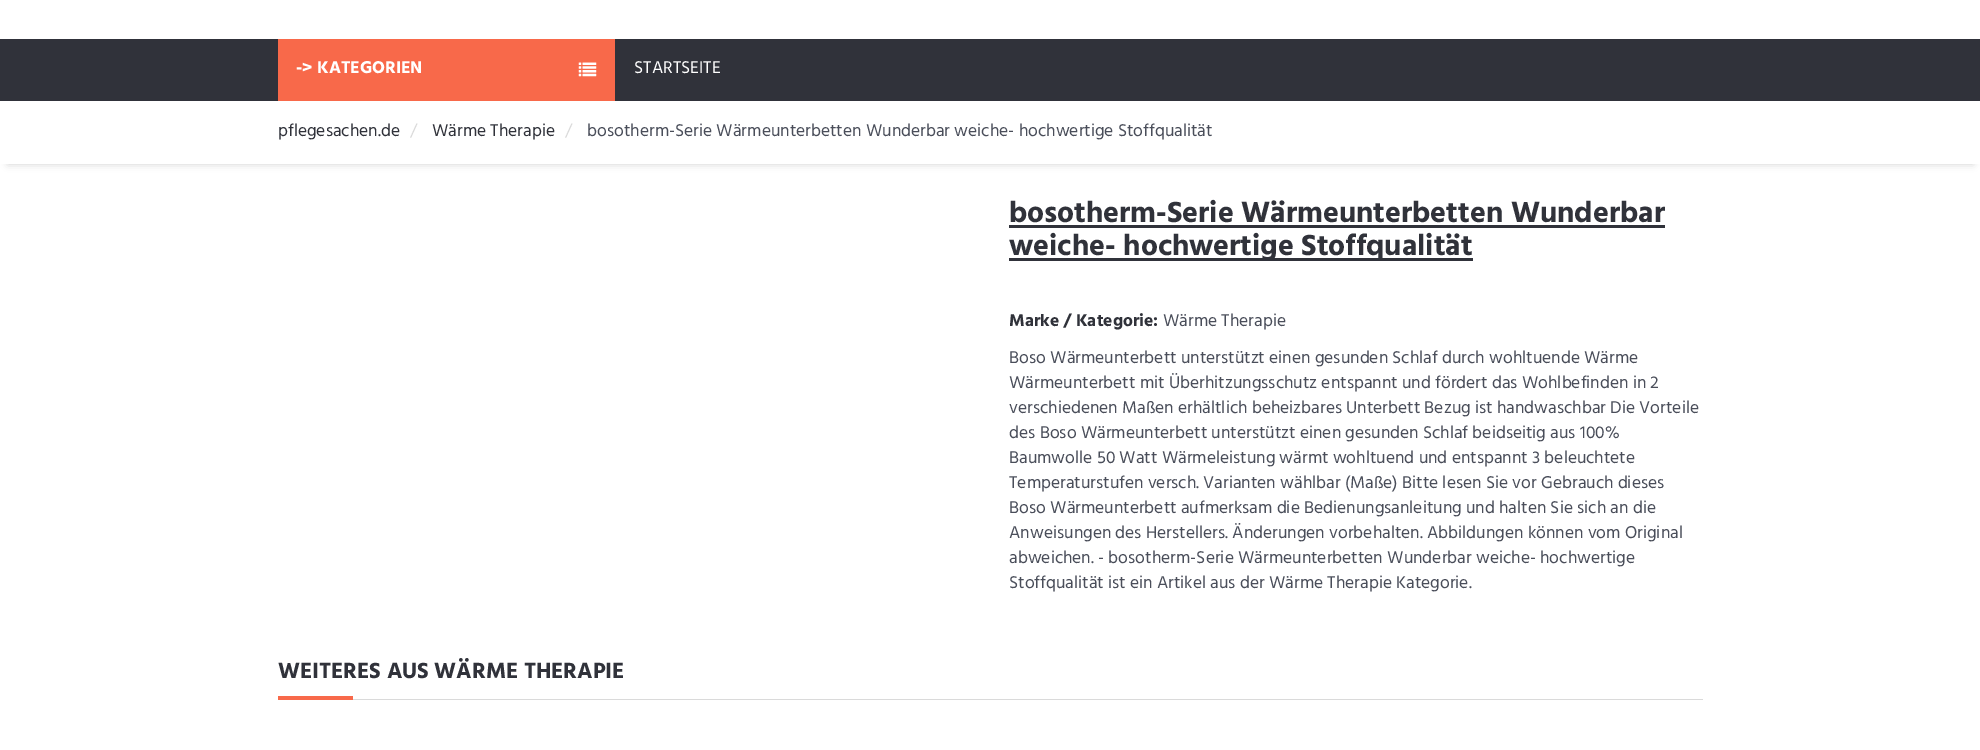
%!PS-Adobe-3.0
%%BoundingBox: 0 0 1980 750
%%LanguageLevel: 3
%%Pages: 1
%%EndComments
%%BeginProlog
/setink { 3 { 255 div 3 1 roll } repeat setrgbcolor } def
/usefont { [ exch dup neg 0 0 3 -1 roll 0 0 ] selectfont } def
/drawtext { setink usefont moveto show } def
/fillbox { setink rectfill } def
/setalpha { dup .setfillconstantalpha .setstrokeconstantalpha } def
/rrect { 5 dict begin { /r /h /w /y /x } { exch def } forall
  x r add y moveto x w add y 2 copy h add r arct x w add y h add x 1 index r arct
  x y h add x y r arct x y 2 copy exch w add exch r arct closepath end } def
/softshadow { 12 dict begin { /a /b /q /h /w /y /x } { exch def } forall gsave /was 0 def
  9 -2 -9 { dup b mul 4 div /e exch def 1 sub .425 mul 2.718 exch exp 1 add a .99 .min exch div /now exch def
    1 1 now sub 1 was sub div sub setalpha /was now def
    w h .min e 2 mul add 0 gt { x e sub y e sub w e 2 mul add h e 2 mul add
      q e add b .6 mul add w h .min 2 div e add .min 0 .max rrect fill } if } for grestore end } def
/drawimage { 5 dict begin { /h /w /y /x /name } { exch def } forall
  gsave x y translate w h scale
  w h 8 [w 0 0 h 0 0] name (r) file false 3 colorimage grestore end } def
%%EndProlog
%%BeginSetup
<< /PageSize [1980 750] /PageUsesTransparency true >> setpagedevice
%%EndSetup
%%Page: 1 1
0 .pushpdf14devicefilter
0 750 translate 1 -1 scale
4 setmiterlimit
0 0 1980 750 255 255 255 fillbox
0 39 1980 62 48 50 58 fillbox
278 39 337 62 248 105 74 fillbox
(-> KATEGORIEN) 296 73 /Hind-Bold 17.5 255 255 255 drawtext
(assets/img1.rgb) 578 62 19 15 drawimage
(STARTSEITE) 634 73 /Hind-Regular 17.5 255 255 255 drawtext
gsave
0 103 moveto 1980 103 lineto 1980 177 lineto 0 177 lineto closepath 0 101 moveto 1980 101 lineto 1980 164 lineto 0 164 lineto closepath eoclip newpath
0 0 0 setink
8 116 1965 48 0 4 0.18 softshadow
grestore
(pflegesachen.de) 278 136 /Hind-Regular 17.5 48 50 58 drawtext
(/) 410 136 /Hind-Regular 17.5 218 218 218 drawtext
(Wärme Therapie) 432 136 /Hind-Regular 17.5 48 50 58 drawtext
(/) 565 136 /Hind-Regular 17.5 218 218 218 drawtext
(bosotherm-Serie Wärmeunterbetten Wunderbar weiche- hochwertige Stoffqualität) 587 136 /Hind-Regular 17.5 74 78 90 drawtext
(bosotherm-Serie Wärmeunterbetten Wunderbar) 1009 222 /Hind-Bold 30 48 50 58 drawtext
1009 225 656 3 48 50 58 fillbox
1009 258 464 3 48 50 58 fillbox
(weiche- hochwertige Stoffqualität) 1009 255 /Hind-Bold 30 48 50 58 drawtext
(Marke / Kategorie:) 1009 326 /Hind-Bold 17.5 48 50 58 drawtext
(Wärme Therapie) 1163 326 /Hind-Regular 17.5 74 78 90 drawtext
(Boso Wärmeunterbett unterstützt einen gesunden Schlaf durch wohltuende Wärme) 1009 363 /Hind-Regular 17.5 74 78 90 drawtext
(Wärmeunterbett mit Überhitzungsschutz entspannt und fördert das Wohlbefinden in 2) 1009 388 /Hind-Regular 17.5 74 78 90 drawtext
(verschiedenen Maßen erhältlich beheizbares Unterbett Bezug ist handwaschbar Die Vorteile) 1009 413 /Hind-Regular 17.5 74 78 90 drawtext
(des Boso Wärmeunterbett unterstützt einen gesunden Schlaf beidseitig aus 100%) 1009 438 /Hind-Regular 17.5 74 78 90 drawtext
(Baumwolle 50 Watt Wärmeleistung wärmt wohltuend und entspannt 3 beleuchtete) 1009 463 /Hind-Regular 17.5 74 78 90 drawtext
(Temperaturstufen versch. Varianten wählbar \(Maße\) Bitte lesen Sie vor Gebrauch dieses) 1009 488 /Hind-Regular 17.5 74 78 90 drawtext
(Boso Wärmeunterbett aufmerksam die Bedienungsanleitung und halten Sie sich an die) 1009 513 /Hind-Regular 17.5 74 78 90 drawtext
(Anweisungen des Herstellers. Änderungen vorbehalten. Abbildungen können vom Original) 1009 538 /Hind-Regular 17.5 74 78 90 drawtext
(abweichen. - bosotherm-Serie Wärmeunterbetten Wunderbar weiche- hochwertige) 1009 563 /Hind-Regular 17.5 74 78 90 drawtext
(Stoffqualität ist ein Artikel aus der Wärme Therapie Kategorie.) 1009 588 /Hind-Regular 17.5 74 78 90 drawtext
353 699 1350 1 218 218 218 fillbox
(WEITERES AUS WÄRME THERAPIE) 278 678 /Hind-Bold 22.5 48 50 58 drawtext
278 696 75 4 248 105 74 fillbox
.poppdf14devicefilter showpage
%%EOF
